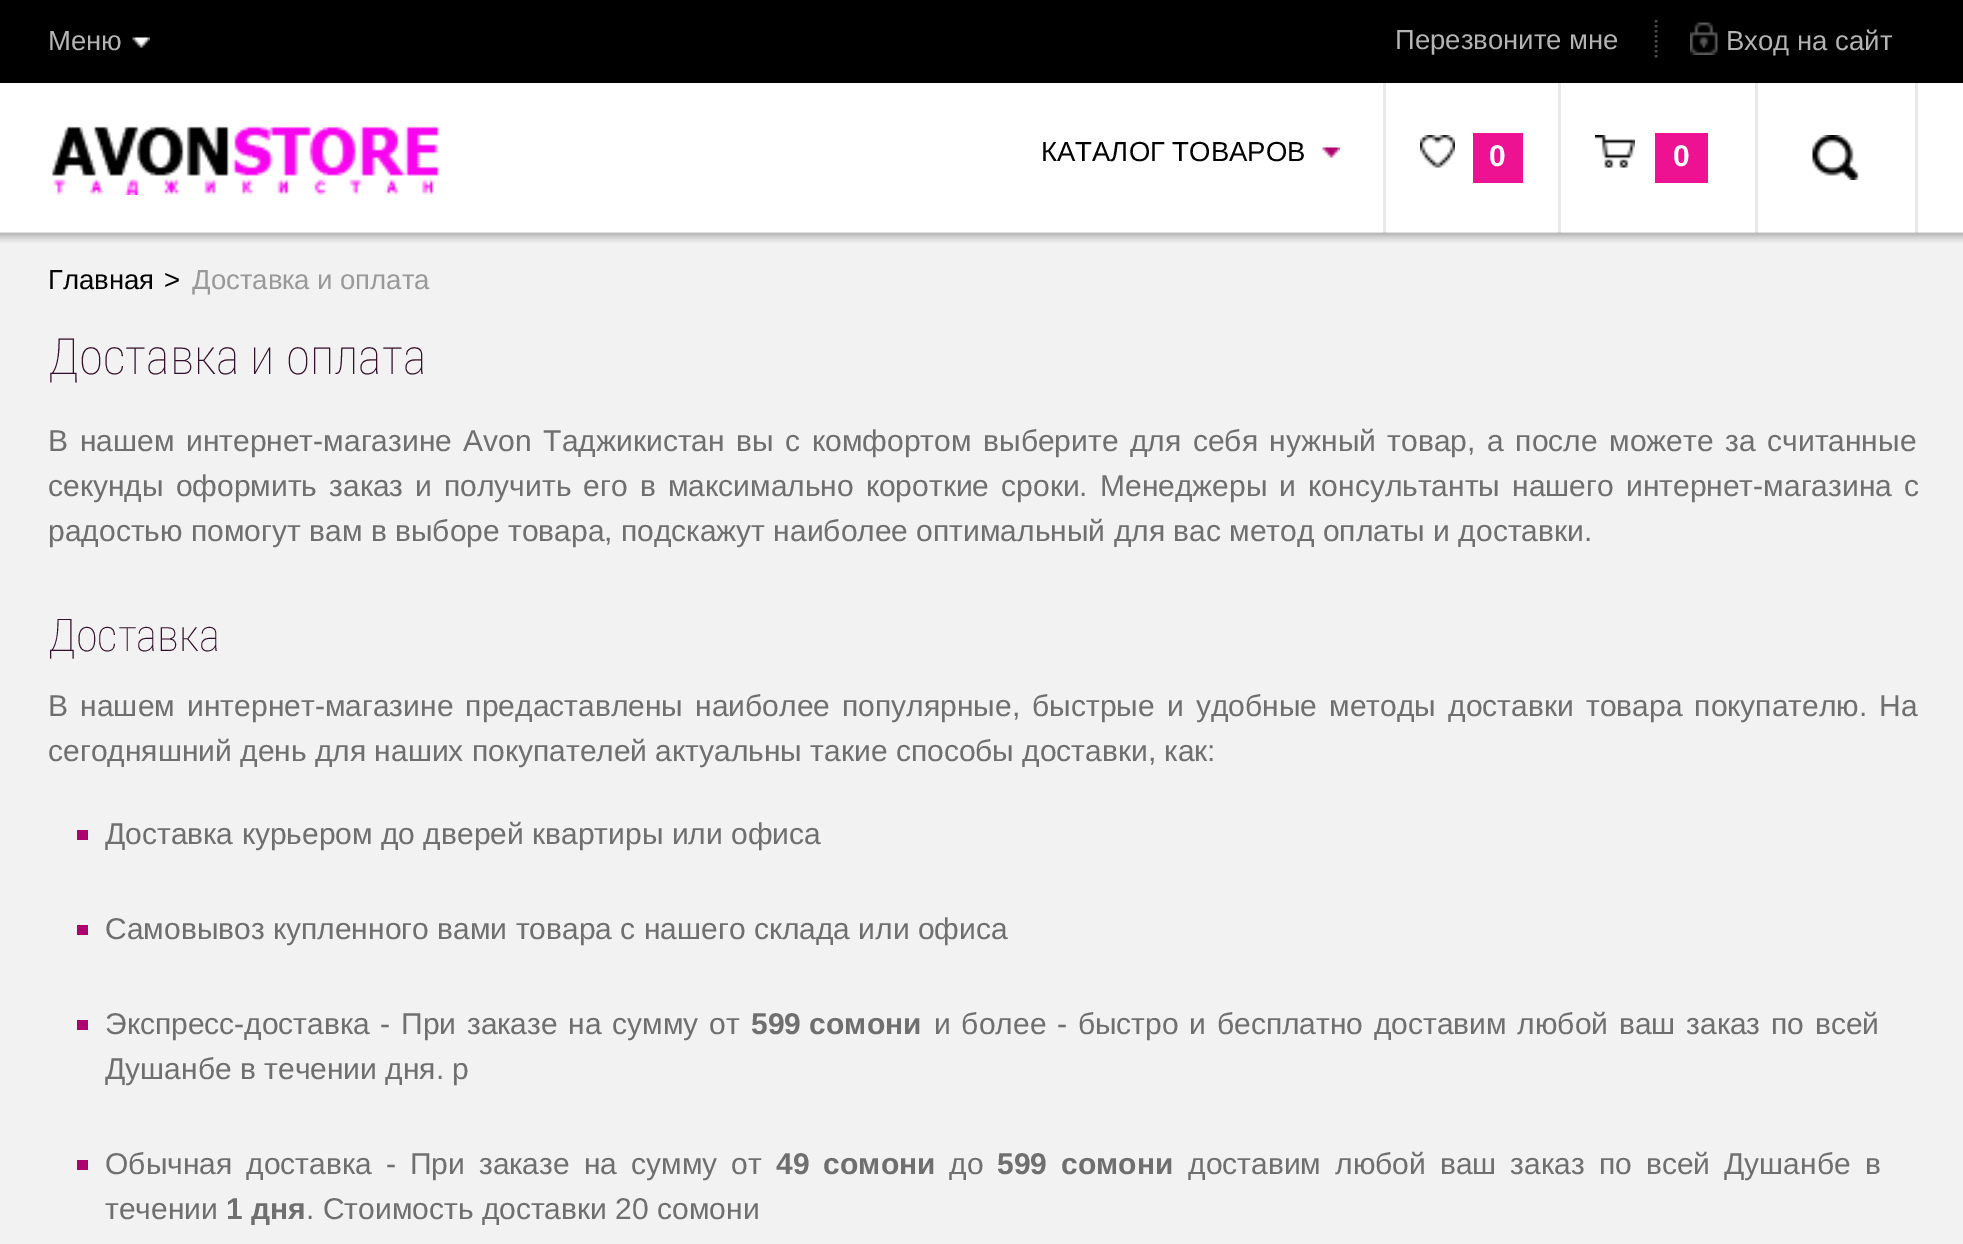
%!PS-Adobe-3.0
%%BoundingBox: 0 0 1963 1244
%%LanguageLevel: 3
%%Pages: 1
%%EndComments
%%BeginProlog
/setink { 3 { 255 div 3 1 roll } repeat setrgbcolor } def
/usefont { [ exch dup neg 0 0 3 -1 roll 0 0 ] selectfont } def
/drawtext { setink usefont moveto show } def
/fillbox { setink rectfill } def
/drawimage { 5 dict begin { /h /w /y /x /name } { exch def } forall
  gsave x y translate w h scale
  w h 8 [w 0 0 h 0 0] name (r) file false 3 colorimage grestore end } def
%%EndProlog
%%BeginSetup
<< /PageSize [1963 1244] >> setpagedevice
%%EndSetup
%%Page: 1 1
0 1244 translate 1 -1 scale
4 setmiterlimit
0 0 1963 1244 242 242 242 fillbox
0 0 1963 83 0 0 0 fillbox
(Меню) 48 50 /LiberationSans-Regular 27.5 180 180 180 drawtext
(assets/img1.rgb) 132 37 18 11 drawimage
(Перезвоните мне) 1395 49 /LiberationSans-Regular 27.5 180 180 180 drawtext
74 74 74 setink
2.5 setlinewidth
[2.5 2.5] 0 setdash
1656 20 moveto 1656 57.5 lineto stroke
(assets/img2.rgb) 1690 22 28 33 drawimage
(Вход на сайт) 1726 50 /LiberationSans-Regular 27.5 180 180 180 drawtext
0 83 1963 150 255 255 255 fillbox
(assets/img3.rgb) 51 126 390 69 drawimage
(КАТАЛОГ ТОВАРОВ) 1041 161 /LiberationSans-Regular 27.5 0 0 0 drawtext
(assets/img4.rgb) 1322 147 18 11 drawimage
1383 83 3 150 233 233 233 fillbox
(assets/img5.rgb) 1420 135 35 33 drawimage
1473 133 50 50 236 18 145 fillbox
(0) 1489 166 /LiberationSans-Bold 30 255 255 255 drawtext
1558 83 3 150 233 233 233 fillbox
(assets/img6.rgb) 1595 135 40 33 drawimage
1655 133 53 50 236 18 145 fillbox
(0) 1673 166 /LiberationSans-Bold 30 255 255 255 drawtext
1915 83 3 150 233 233 233 fillbox
1755 83 3 150 233 233 233 fillbox
(assets/img7.rgb) 1812 135 47 45 drawimage
(assets/img8.rgb) 0 232 1963 11 drawimage
(Главная) 48 289 /LiberationSans-Regular 27.5 0 0 0 drawtext
(>) 164 289 /LiberationSans-Regular 27.5 0 0 0 drawtext
(Доставка и оплата) 192 289 /LiberationSans-Regular 27.5 153 153 153 drawtext
(Доставка и оплата) 48 374 /RobotoCondensed-Thin 50 52 14 42 drawtext
/LiberationSans-Regular 30 usefont
111 111 111 setink
48 451 moveto 3.25 0 32 (В нашем интернет-магазине Avon Таджикистан вы с комфортом выберите для себя нужный товар, а после можете за считанные) widthshow
48 496 moveto 3.75 0 32 (секунды оформить заказ и получить его в максимально короткие сроки. Менеджеры и консультанты нашего интернет-магазина с) widthshow
(радостью помогут вам в выборе товара, подскажут наиболее оптимальный для вас метод оплаты и доставки.) 48 541 /LiberationSans-Regular 30 111 111 111 drawtext
(Доставка) 48 651 /RobotoCondensed-Thin 45 52 14 42 drawtext
/LiberationSans-Regular 30 usefont
111 111 111 setink
48 716 moveto 3.9 0 32 (В нашем интернет-магазине предаставлены наиболее популярные, быстрые и удобные методы доставки товара покупателю. На) widthshow
(сегодняшний день для наших покупателей актуальны такие способы доставки, как:) 48 761 /LiberationSans-Regular 30 111 111 111 drawtext
77 830 11 10 174 0 110 fillbox
(Доставка курьером до дверей квартиры или офиса) 105 844 /LiberationSans-Regular 30 111 111 111 drawtext
77 925 11 10 174 0 110 fillbox
(Самовывоз купленного вами товара с нашего склада или офиса) 105 939 /LiberationSans-Regular 30 111 111 111 drawtext
77 1020 11 10 174 0 110 fillbox
111 111 111 setink
105 1034 moveto 2.4 0 32 (Экспресс-доставка - При заказе на сумму от) widthshow
(599 сомони) 751 1034 /LiberationSans-Bold 30 111 111 111 drawtext
/LiberationSans-Regular 30 usefont
934 1034 moveto 2.4 0 32 (и более - быстро и бесплатно доставим любой ваш заказ по всей) widthshow
(Душанбе в течении дня. p) 105 1079 /LiberationSans-Regular 30 111 111 111 drawtext
77 1160 11 10 174 0 110 fillbox
111 111 111 setink
105 1174 moveto 5.75 0 32 (Обычная доставка - При заказе на сумму от) widthshow
/LiberationSans-Bold 30 usefont
776 1174 moveto 5.75 0 32 (49 сомони) widthshow
(до) 949 1174 /LiberationSans-Regular 30 111 111 111 drawtext
/LiberationSans-Bold 30 usefont
997 1174 moveto 5.75 0 32 (599 сомони) widthshow
/LiberationSans-Regular 30 usefont
1188 1174 moveto 5.75 0 32 (доставим любой ваш заказ по всей Душанбе в) widthshow
(течении) 105 1219 /LiberationSans-Regular 30 111 111 111 drawtext
(1 дня) 226 1219 /LiberationSans-Bold 30 111 111 111 drawtext
(. Стоимость доставки 20 сомони) 306 1219 /LiberationSans-Regular 30 111 111 111 drawtext
showpage
%%EOF
